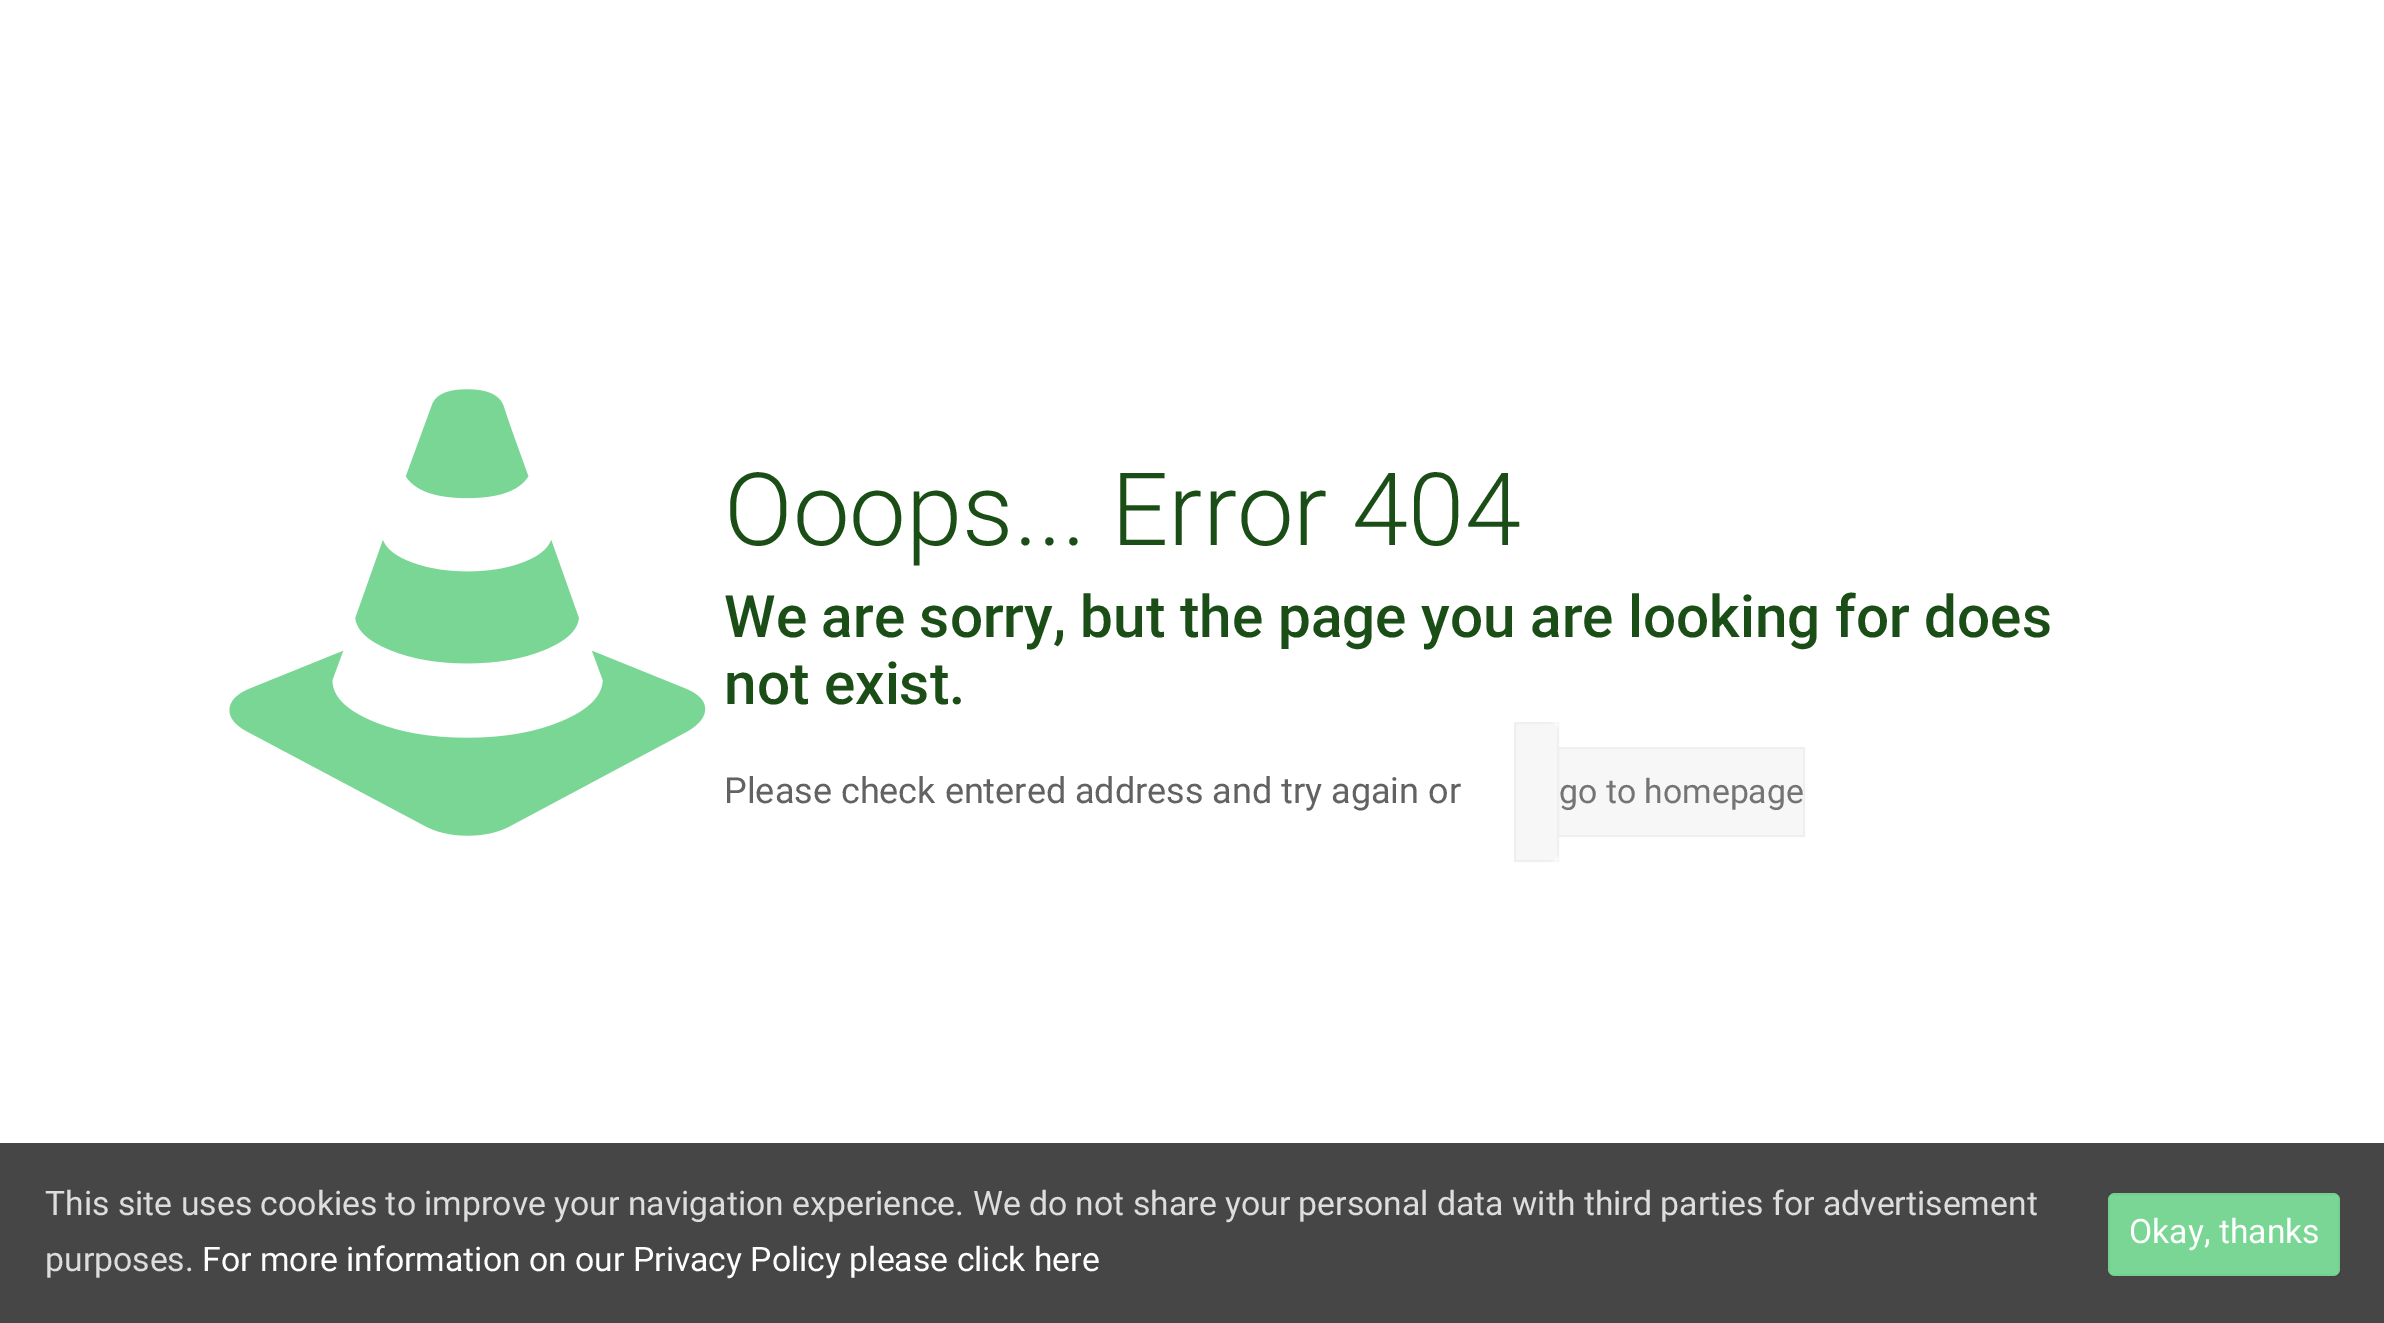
%!PS-Adobe-3.0
%%BoundingBox: 0 0 2384 1323
%%LanguageLevel: 3
%%Pages: 1
%%EndComments
%%BeginProlog
/setink { 3 { 255 div 3 1 roll } repeat setrgbcolor } def
/usefont { [ exch dup neg 0 0 3 -1 roll 0 0 ] selectfont } def
/drawtext { setink usefont moveto show } def
/fillbox { setink rectfill } def
/setalpha { dup .setfillconstantalpha .setstrokeconstantalpha } def
/rrect { 5 dict begin { /r /h /w /y /x } { exch def } forall
  x r add y moveto x w add y 2 copy h add r arct x w add y h add x 1 index r arct
  x y h add x y r arct x y 2 copy exch w add exch r arct closepath end } def
/drawimage { 5 dict begin { /h /w /y /x /name } { exch def } forall
  gsave x y translate w h scale
  w h 8 [w 0 0 h 0 0] name (r) file false 3 colorimage grestore end } def
%%EndProlog
%%BeginSetup
<< /PageSize [2384 1323] /PageUsesTransparency true >> setpagedevice
%%EndSetup
%%Page: 1 1
0 .pushpdf14devicefilter
0 1323 translate 1 -1 scale
4 setmiterlimit
0 0 2384 1323 255 255 255 fillbox
(assets/img1.rgb) 229 389 477 447 drawimage
(Ooops... Error 404) 724 545 /Roboto-Light 101.25 27 78 23 drawtext
(We are sorry, but the page you are looking for does) 724 637 /Roboto-Medium 58.5 27 78 23 drawtext
(not exist.) 724 704 /Roboto-Medium 58.5 27 78 23 drawtext
(Please check entered address and try again or) 724 803 /Roboto-Regular 36 98 98 98 drawtext
1559 747 246 90 247 247 247 fillbox
0.03 setalpha
0 0 0 setink
2 setlinewidth
1515 748 289 88 rectstroke
1 setalpha
(go to homepage) 1559 803 /Roboto-Regular 33.75 116 116 116 drawtext
247 247 247 setink
1514 722 moveto 1548 722 lineto 1554 722 1559 727 1559 733 curveto 1559 851 lineto 1559 857 1554 862 1548 862 curveto 1514 862 lineto closepath fill
0.03 setalpha
0 0 0 setink
1515 723 43 138 rectstroke
1 setalpha
0 1143 2384 180 70 70 70 fillbox
(This site uses cookies to improve your navigation experience. We do not share your personal data with third parties for advertisement) 45 1215 /Roboto-Regular 33.75 221 221 221 drawtext
(purposes.) 45 1271 /Roboto-Regular 33.75 221 221 221 drawtext
(For more information on our Privacy Policy please click here) 202 1271 /Roboto-Regular 33.75 255 255 255 drawtext
121 214 149 setink
2108 1193 232 83 7 rrect fill
0.03 setalpha
0 0 0 setink
2109 1194 230 81 rectstroke
1 setalpha
(Okay, thanks) 2129 1243 /Roboto-Regular 33.75 255 255 255 drawtext
.poppdf14devicefilter showpage
%%EOF
